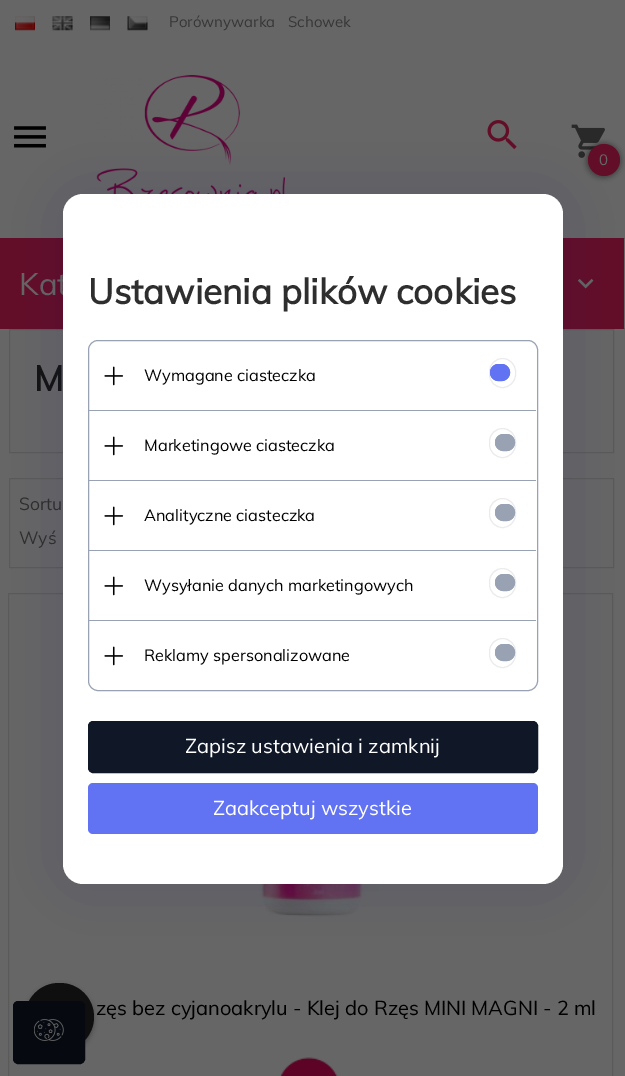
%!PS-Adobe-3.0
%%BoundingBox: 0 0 625 1076
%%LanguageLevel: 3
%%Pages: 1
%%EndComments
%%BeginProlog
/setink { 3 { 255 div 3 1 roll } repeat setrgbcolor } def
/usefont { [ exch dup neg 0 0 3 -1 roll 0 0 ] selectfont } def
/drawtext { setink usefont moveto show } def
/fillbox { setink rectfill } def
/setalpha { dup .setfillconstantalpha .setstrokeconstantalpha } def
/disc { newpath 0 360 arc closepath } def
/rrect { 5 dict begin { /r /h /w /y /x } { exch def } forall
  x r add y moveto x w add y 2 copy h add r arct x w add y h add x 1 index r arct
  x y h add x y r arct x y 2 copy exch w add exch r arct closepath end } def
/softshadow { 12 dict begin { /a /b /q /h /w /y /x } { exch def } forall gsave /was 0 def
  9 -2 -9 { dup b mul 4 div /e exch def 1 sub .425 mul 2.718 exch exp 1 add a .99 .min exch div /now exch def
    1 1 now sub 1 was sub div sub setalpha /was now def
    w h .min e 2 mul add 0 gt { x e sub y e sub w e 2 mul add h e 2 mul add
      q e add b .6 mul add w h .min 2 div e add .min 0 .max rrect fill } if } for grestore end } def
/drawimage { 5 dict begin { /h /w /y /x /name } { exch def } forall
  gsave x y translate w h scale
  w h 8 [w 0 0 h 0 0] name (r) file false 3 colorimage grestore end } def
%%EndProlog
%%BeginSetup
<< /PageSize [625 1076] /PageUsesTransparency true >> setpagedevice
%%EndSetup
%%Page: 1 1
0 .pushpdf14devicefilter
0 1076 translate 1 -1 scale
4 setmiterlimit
0 0 625 1076 102 102 102 fillbox
(assets/img1.rgb) 15 16 20 15 drawimage
(assets/img2.rgb) 52 16 21 15 drawimage
(assets/img3.rgb) 90 16 20 15 drawimage
(assets/img4.rgb) 127 16 21 15 drawimage
(Porównywarka) 169 27 /Muli-Regular 15 54 54 54 drawtext
(Schowek) 288 27 /Muli-Regular 15 54 54 54 drawtext
(assets/img5.rgb) 14 126 32 22 drawimage
(assets/img6.rgb) 96 75 190 119 drawimage
(assets/img7.rgb) 487 120 30 30 drawimage
(assets/img8.rgb) 571 124 34 34 drawimage
0 0 0 setink
586 143 35 35 17.5 2.5 0.36 softshadow
99 14 40 setink
604 160 16 disc fill
(0) 599 165 /Muli-Regular 15 102 102 102 drawtext
624 238 1 1 90 90 90 fillbox
624 328 1 1 90 90 90 fillbox
0 238 624 91 99 14 40 fillbox
(Kat) 19 295 /Muli-Regular 31 102 102 102 drawtext
(assets/img9.rgb) 577 278 17 11 drawimage
90 90 90 setink
9.5 329.5 604 123 rectstroke
(M) 34 391 /Muli-Bold 35 20 20 20 drawtext
90 90 90 setink
9.5 478.5 604 89 rectstroke
(Sortu) 19 510 /Muli-Regular 17.5 46 46 46 drawtext
(Wyś) 19 544 /Muli-Regular 17.5 46 46 46 drawtext
90 90 90 setink
8.5 593.5 604 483 rectstroke
(assets/img10.rgb) 258 884 121 33 drawimage
(zęs bez cyjanoakrylu - Klej do Rzęs MINI MAGNI - 2 ml) 96 1015 /Muli-Regular 20 0 0 0 drawtext
(assets/img11.rgb) 280 1057 58 19 drawimage
33 26 105 setink
63 194 500 690 20 30 0.15 softshadow
255 255 255 setink
63 194 500 690 20 rrect fill
(Ustawienia plików cookies) 88 304 /Muli-Bold 35 46 46 46 drawtext
152 162 179 setink
88.5 340.5 449 350 9.5 rrect stroke
(assets/img12.rgb) 104 366 20 20 drawimage
(Wymagane ciasteczka) 144 381 /Muli-Regular 16.25 0 0 0 drawtext
235 235 235 setink
489.5 358.5 26 29 13 rrect stroke
gsave
490 359 25 27 12.5 rrect clip newpath
97 114 243 setink
490 364 20 17 8.5 rrect fill
grestore
97 114 243 setink
490.5 364.5 19 16 8 rrect stroke
89 410 447 1 152 162 179 fillbox
(assets/img12.rgb) 104 436 20 20 drawimage
(Marketingowe ciasteczka) 144 451 /Muli-Regular 16.25 0 0 0 drawtext
235 235 235 setink
489.5 428.5 26 29 13 rrect stroke
gsave
490 429 25 27 12.5 rrect clip newpath
152 162 179 setink
495 434 20 17 8.5 rrect fill
grestore
152 162 179 setink
495.5 434.5 19 16 8 rrect stroke
89 480 447 1 152 162 179 fillbox
(assets/img12.rgb) 104 506 20 20 drawimage
(Analityczne ciasteczka) 144 521 /Muli-Regular 16.25 0 0 0 drawtext
235 235 235 setink
489.5 498.5 26 29 13 rrect stroke
gsave
490 499 25 27 12.5 rrect clip newpath
152 162 179 setink
495 504 20 17 8.5 rrect fill
grestore
152 162 179 setink
495.5 504.5 19 16 8 rrect stroke
89 550 447 1 152 162 179 fillbox
(assets/img12.rgb) 104 576 20 20 drawimage
(Wysyłanie danych marketingowych) 144 591 /Muli-Regular 16.25 0 0 0 drawtext
235 235 235 setink
489.5 568.5 26 29 13 rrect stroke
gsave
490 569 25 27 12.5 rrect clip newpath
152 162 179 setink
495 574 20 17 8.5 rrect fill
grestore
152 162 179 setink
495.5 574.5 19 16 8 rrect stroke
89 620 447 1 152 162 179 fillbox
(assets/img12.rgb) 104 646 20 20 drawimage
(Reklamy spersonalizowane) 144 661 /Muli-Regular 16.25 0 0 0 drawtext
235 235 235 setink
489.5 638.5 26 29 13 rrect stroke
gsave
490 639 25 27 12.5 rrect clip newpath
152 162 179 setink
495 644 20 17 8.5 rrect fill
grestore
152 162 179 setink
495.5 644.5 19 16 8 rrect stroke
16 24 40 setink
88.5 721.5 449 51 4.5 rrect gsave fill grestore
stroke
(Zapisz ustawienia i zamknij) 185 753 /Muli-Regular 20 255 255 255 drawtext
97 114 243 setink
88 783 450 51 5 rrect fill
(Zaakceptuj wszystkie) 213 815 /Muli-Regular 20 255 255 255 drawtext
0 0 0 setink
25 985 69 69 34.5 2.5 0.3 softshadow
15 15 15 setink
25 983 69 68 34 rrect fill
6 10 16 setink
13.5 1001.5 71 62 4.5 rrect gsave fill grestore
stroke
(assets/img13.rgb) 34 1019 30 22 drawimage
.poppdf14devicefilter showpage
%%EOF
